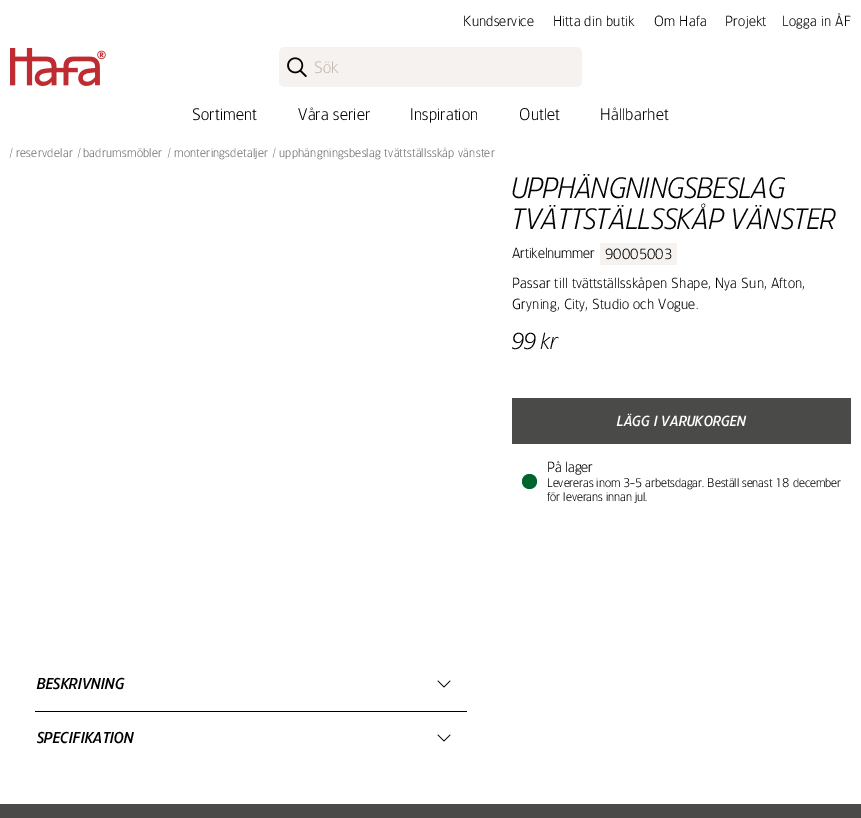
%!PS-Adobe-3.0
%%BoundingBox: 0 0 861 818
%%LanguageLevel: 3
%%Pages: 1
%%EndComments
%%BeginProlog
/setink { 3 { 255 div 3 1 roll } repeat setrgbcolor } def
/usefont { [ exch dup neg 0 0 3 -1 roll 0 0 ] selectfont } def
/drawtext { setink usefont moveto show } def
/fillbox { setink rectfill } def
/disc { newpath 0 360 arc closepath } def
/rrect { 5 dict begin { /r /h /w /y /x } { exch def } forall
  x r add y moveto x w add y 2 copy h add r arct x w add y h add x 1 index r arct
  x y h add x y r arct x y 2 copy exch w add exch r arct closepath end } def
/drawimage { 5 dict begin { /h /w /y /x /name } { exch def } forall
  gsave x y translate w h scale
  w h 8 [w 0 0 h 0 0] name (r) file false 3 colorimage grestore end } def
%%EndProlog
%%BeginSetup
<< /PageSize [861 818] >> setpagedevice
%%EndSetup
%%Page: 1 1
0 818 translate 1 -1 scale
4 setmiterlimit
0 0 861 818 255 255 255 fillbox
/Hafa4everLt-Medium 14 usefont
0 0 0 setink
463 26 moveto 0.32 0 (Kundservice) ashow
553 26 moveto 0.32 0 (Hitta din butik) ashow
654 26 moveto 0.32 0 (Om Hafa) ashow
725 26 moveto 0.32 0 (Projekt) ashow
782 26 moveto 0.32 0 (Logga in ÅF) ashow
(assets/img1.rgb) 10 48 96 38 drawimage
245 242 240 setink
279 47 303 40 6 rrect fill
(assets/img2.rgb) 287 57 20 20 drawimage
(Sök) 314 73 /Hafa4everLt-Medium 16 199 184 173 drawtext
0 0 0 setink
192 120 moveto 0.32 0 (Sortiment) ashow
298 120 moveto 0.32 0 (Våra serier) ashow
410 120 moveto 0.32 0 (Inspiration) ashow
519 120 moveto 0.32 0 (Outlet) ashow
600 120 moveto 0.32 0 (Hållbarhet) ashow
(/) 10 157 /Hafa4everLt-Medium 12 108 108 108 drawtext
16 157 moveto 0.32 0 (reservdelar) ashow
(/) 78 157 /Hafa4everLt-Medium 12 108 108 108 drawtext
83 157 moveto 0.32 0 (badrumsmöbler) ashow
(/) 168 157 /Hafa4everLt-Medium 12 108 108 108 drawtext
174 157 moveto 0.32 0 (monteringsdetaljer) ashow
(/) 273 157 /Hafa4everLt-Medium 12 108 108 108 drawtext
279 157 moveto 0.32 0 (upphängningsbeslag tvättställsskåp vänster) ashow
(UPPHÄNGNINGSBESLAG) 512 198 /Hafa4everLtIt-Medium 28 0 0 0 drawtext
(TVÄTTSTÄLLSSKÅP VÄNSTER) 512 229 /Hafa4everLtIt-Medium 28 0 0 0 drawtext
(Artikelnummer) 512 258 /Hafa4everLt-Medium 14 0 0 0 drawtext
600 243 77 22 245 242 240 fillbox
(90005003) 605 259 /Hafa4everLt-Medium 14 0 0 0 drawtext
512 288 moveto 0.32 0 (Passar till tvättställsskåpen Shape, Nya Sun, Afton,) ashow
512 309 moveto 0.32 0 (Gryning, City, Studio och Vogue.) ashow
(99 kr) 512 349 /Hafa4everLtIt-Medium 22 0 0 0 drawtext
512 398 339 46 74 74 72 fillbox
/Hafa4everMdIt-Medium 14 usefont
254 254 254 setink
617 426 moveto 0.32 0 (LÄGG I VARUKORGEN) ashow
0 100 47 setink
529.5 481.5 7.5 disc fill
(På lager) 547 472 /Hafa4everLt-Medium 14 0 0 0 drawtext
(Levereras inom 3-5 arbetsdagar. Beställ senast 18 december) 547 487 /Hafa4everLt-Medium 12 0 0 0 drawtext
(för leverans innan jul.) 547 501 /Hafa4everLt-Medium 12 0 0 0 drawtext
35 711 432 1 0 0 0 fillbox
/Hafa4everMdIt-Medium 15 usefont
37 689 moveto 0.32 0 (BESKRIVNING) ashow
(assets/img3.rgb) 437 680 14 8 drawimage
37 743 moveto 0.32 0 (SPECIFIKATION) ashow
(assets/img3.rgb) 437 734 14 8 drawimage
0 804 861 14 74 74 72 fillbox
showpage
%%EOF
